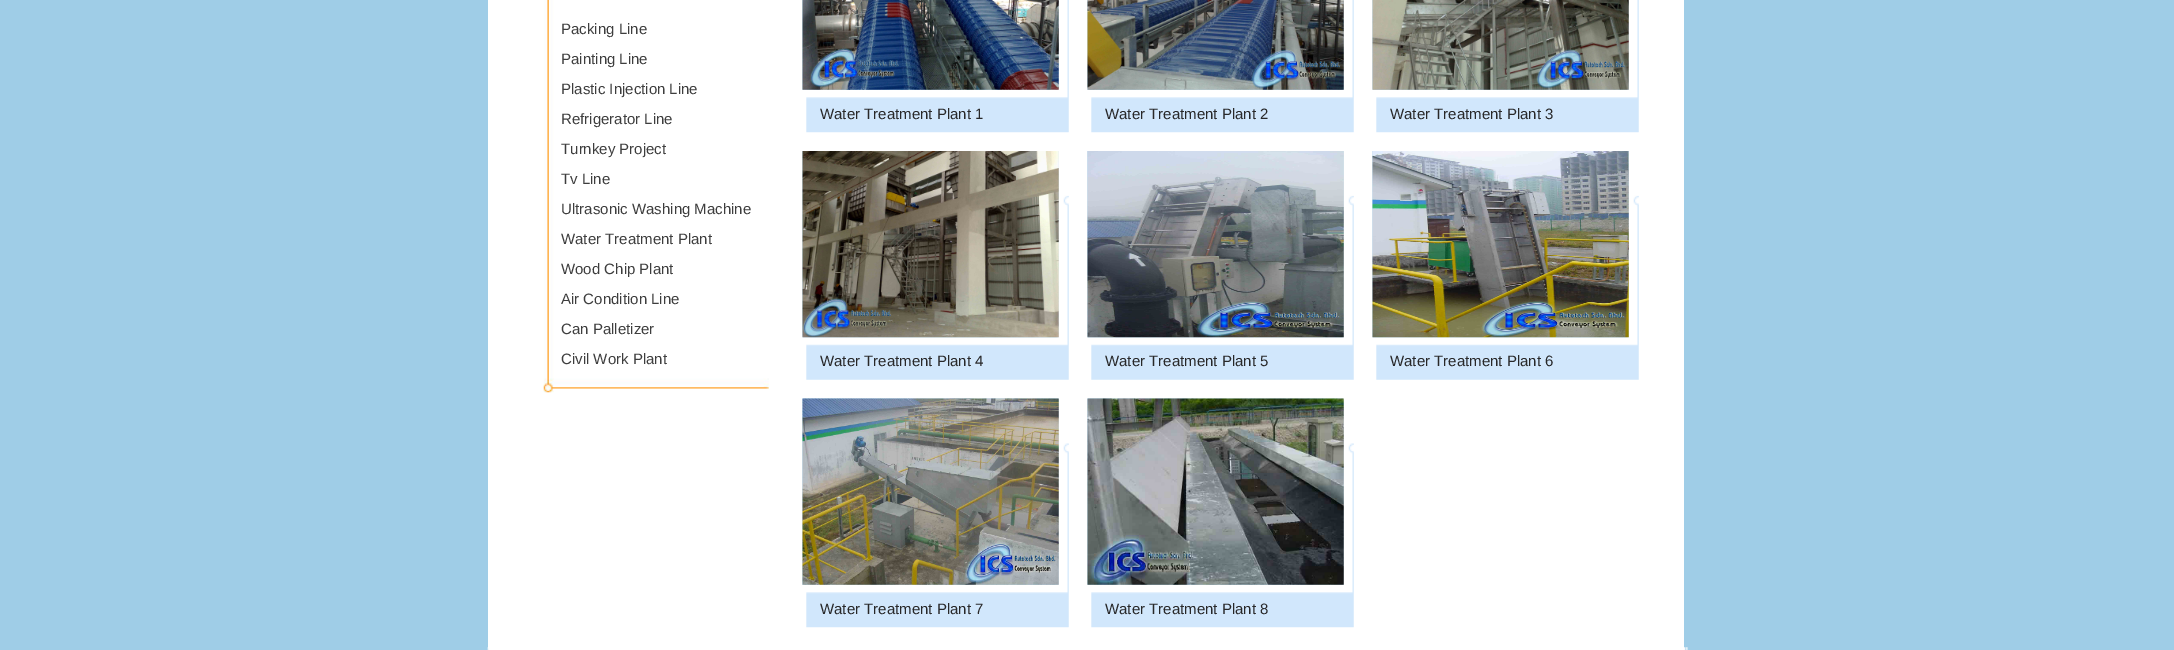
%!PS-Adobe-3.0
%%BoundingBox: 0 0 2174 650
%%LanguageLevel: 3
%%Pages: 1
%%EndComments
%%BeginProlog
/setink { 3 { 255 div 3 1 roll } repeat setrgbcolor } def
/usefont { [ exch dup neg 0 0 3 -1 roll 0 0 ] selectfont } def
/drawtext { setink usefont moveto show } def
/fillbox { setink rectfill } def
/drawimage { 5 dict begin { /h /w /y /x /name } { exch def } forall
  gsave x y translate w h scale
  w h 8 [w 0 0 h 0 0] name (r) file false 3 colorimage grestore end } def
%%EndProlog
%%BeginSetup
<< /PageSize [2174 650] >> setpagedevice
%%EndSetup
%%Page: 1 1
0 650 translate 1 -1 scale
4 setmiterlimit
0 0 2174 650 159 205 231 fillbox
(assets/img15.rgb) 487 647 1201 3 drawimage
488 0 1196 648 255 255 255 fillbox
(assets/img1.rgb) 543 0 226 393 drawimage
(Packing Line) 561 34 /LiberationSans-Regular 15 62 62 62 drawtext
(Painting Line) 561 64 /LiberationSans-Regular 15 62 62 62 drawtext
(Plastic Injection Line) 561 94 /LiberationSans-Regular 15 62 62 62 drawtext
(Refrigerator Line) 561 124 /LiberationSans-Regular 15 62 62 62 drawtext
(Turnkey Project) 561 154 /LiberationSans-Regular 15 62 62 62 drawtext
(Tv Line) 561 184 /LiberationSans-Regular 15 62 62 62 drawtext
(Ultrasonic Washing Machine) 561 214 /LiberationSans-Regular 15 62 62 62 drawtext
(Water Treatment Plant) 561 244 /LiberationSans-Regular 15 62 62 62 drawtext
(Wood Chip Plant) 561 274 /LiberationSans-Regular 15 62 62 62 drawtext
(Air Condition Line) 561 304 /LiberationSans-Regular 15 62 62 62 drawtext
(Can Palletizer) 561 334 /LiberationSans-Regular 15 62 62 62 drawtext
(Civil Work Plant) 561 364 /LiberationSans-Regular 15 62 62 62 drawtext
(assets/img2.rgb) 802 0 267 133 drawimage
(assets/img3.rgb) 802 0 257 90 drawimage
(Water Treatment Plant 1) 820 119 /LiberationSans-Regular 15 40 40 41 drawtext
(assets/img2.rgb) 1087 0 267 133 drawimage
(assets/img4.rgb) 1087 0 257 90 drawimage
(Water Treatment Plant 2) 1105 119 /LiberationSans-Regular 15 40 40 41 drawtext
(assets/img5.rgb) 1372 0 267 133 drawimage
(assets/img6.rgb) 1372 0 257 90 drawimage
(Water Treatment Plant 3) 1390 119 /LiberationSans-Regular 15 40 40 41 drawtext
(assets/img7.rgb) 802 151 267 229 drawimage
(assets/img8.rgb) 802 151 257 187 drawimage
(Water Treatment Plant 4) 820 366 /LiberationSans-Regular 15 40 40 41 drawtext
(assets/img7.rgb) 1087 151 267 229 drawimage
(assets/img9.rgb) 1087 151 257 187 drawimage
(Water Treatment Plant 5) 1105 366 /LiberationSans-Regular 15 40 40 41 drawtext
(assets/img10.rgb) 1372 151 267 229 drawimage
(assets/img11.rgb) 1372 151 257 187 drawimage
(Water Treatment Plant 6) 1390 366 /LiberationSans-Regular 15 40 40 41 drawtext
(assets/img12.rgb) 802 398 267 230 drawimage
(assets/img13.rgb) 802 398 257 187 drawimage
(Water Treatment Plant 7) 820 614 /LiberationSans-Regular 15 40 40 41 drawtext
(assets/img12.rgb) 1087 398 267 230 drawimage
(assets/img14.rgb) 1087 398 257 187 drawimage
(Water Treatment Plant 8) 1105 614 /LiberationSans-Regular 15 40 40 41 drawtext
showpage
%%EOF
